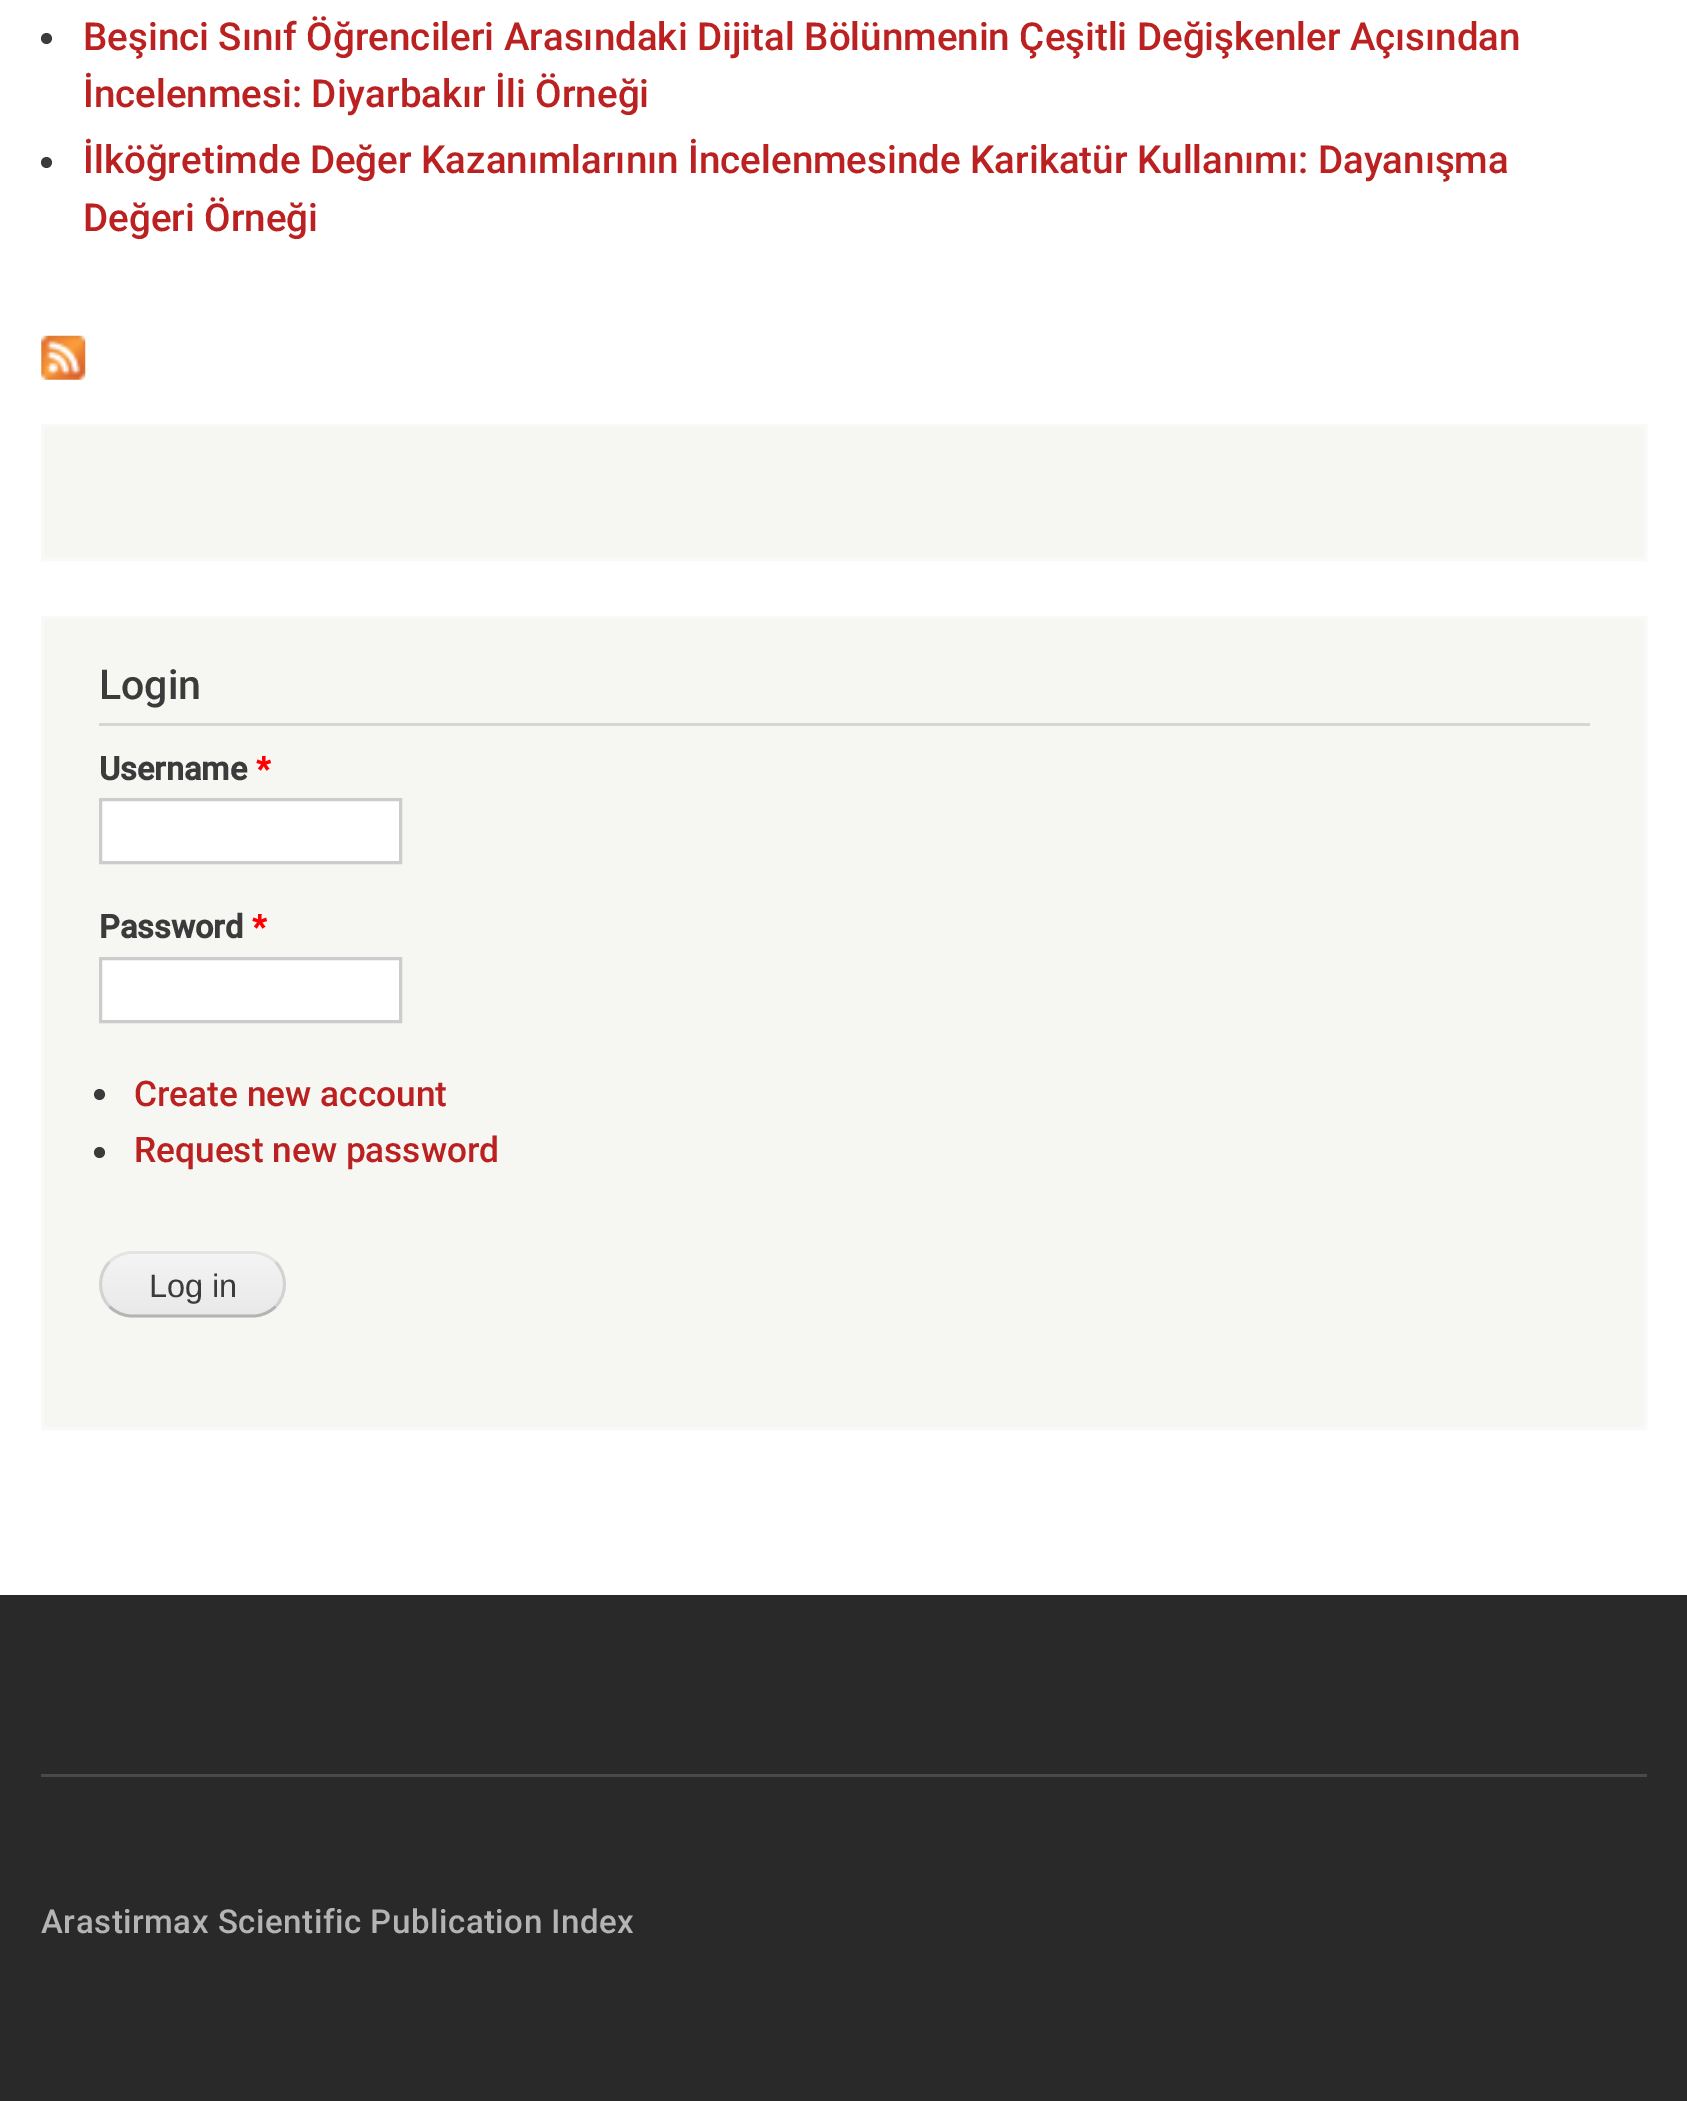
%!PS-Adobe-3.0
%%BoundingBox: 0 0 1687 2101
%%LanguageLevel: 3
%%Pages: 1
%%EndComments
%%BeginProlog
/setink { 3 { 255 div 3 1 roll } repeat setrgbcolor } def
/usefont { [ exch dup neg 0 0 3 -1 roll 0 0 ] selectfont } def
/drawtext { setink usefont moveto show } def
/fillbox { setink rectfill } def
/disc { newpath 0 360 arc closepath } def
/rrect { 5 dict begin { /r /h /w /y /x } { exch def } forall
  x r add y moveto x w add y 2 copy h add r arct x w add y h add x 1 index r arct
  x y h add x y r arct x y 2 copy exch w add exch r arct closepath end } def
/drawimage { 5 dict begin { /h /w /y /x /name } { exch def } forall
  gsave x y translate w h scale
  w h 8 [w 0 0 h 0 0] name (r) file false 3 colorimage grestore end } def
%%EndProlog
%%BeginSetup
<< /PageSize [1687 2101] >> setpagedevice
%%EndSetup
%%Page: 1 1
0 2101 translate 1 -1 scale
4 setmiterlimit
0 0 1687 2101 255 255 255 fillbox
59 59 59 setink
46.5 38.5 5.5 disc fill
(Beşinci Sınıf Öğrencileri Arasındaki Dijital Bölünmenin Çeşitli Değişkenler Açısından) 83 50 /Roboto-Medium 38.5 186 33 32 drawtext
(İncelenmesi: Diyarbakır İli Örneği) 83 107 /Roboto-Medium 38.5 186 33 32 drawtext
59 59 59 setink
46.5 162.5 5.5 disc fill
(İlköğretimde Değer Kazanımlarının İncelenmesinde Karikatür Kullanımı: Dayanışma) 83 173 /Roboto-Medium 38.5 186 33 32 drawtext
(Değeri Örneği) 83 231 /Roboto-Medium 38.5 186 33 32 drawtext
(assets/img1.rgb) 41 335 45 45 drawimage
246 246 242 setink
42.5 425.5 moveto 1645.5 425.5 lineto 1645.5 559.5 lineto 42.5 559.5 lineto closepath gsave fill grestore
249 249 249 setink
3 setlinewidth
stroke
246 246 242 setink
42.5 617.5 moveto 1645.5 617.5 lineto 1645.5 1428.5 lineto 42.5 1428.5 lineto closepath gsave fill grestore
249 249 249 setink
stroke
99 723 1491 3 214 214 214 fillbox
(Login) 99 699 /Roboto-Medium 41 59 59 59 drawtext
(Username) 99 780 /Roboto-Bold 32.5 59 59 59 drawtext
(*) 256 780 /Roboto-Bold 32.5 255 0 0 drawtext
255 255 255 setink
100.5 799.5 moveto 400.5 799.5 lineto 400.5 862.5 lineto 100.5 862.5 lineto closepath gsave fill grestore
204 204 204 setink
stroke
(Password) 99 938 /Roboto-Bold 32.5 59 59 59 drawtext
(*) 252 938 /Roboto-Bold 32.5 255 0 0 drawtext
255 255 255 setink
100.5 958.5 moveto 400.5 958.5 lineto 400.5 1021.5 lineto 100.5 1021.5 lineto closepath gsave fill grestore
204 204 204 setink
stroke
59 59 59 setink
99.5 1094.5 5.5 disc fill
(Create new account) 134 1106 /Roboto-Medium 35.25 186 33 32 drawtext
59 59 59 setink
99.5 1152.5 5.5 disc fill
(Request new password) 134 1162 /Roboto-Medium 35.25 186 33 32 drawtext
255 255 255 setink
99 1251 187 66 33 rrect fill
(assets/img2.rgb) 99 1254 187 63 drawimage
228 228 228 setink
2.8 setlinewidth
109.5 1262 moveto 115.5 1256 123.5 1252.5 132 1252.5 curveto 253 1252.5 lineto 261.5 1252.5 269.5 1256 275.5 1262 curveto stroke
210 210 210 setink
275.5 1262 moveto 287.5 1274 287.5 1294.5 275.5 1306.5 curveto stroke
180 180 180 setink
275.5 1306.5 moveto 269.5 1312.5 261.5 1316 253 1316 curveto 132 1316 lineto 123.5 1316 115.5 1312.5 109.5 1306.5 curveto stroke
210 210 210 setink
109.5 1306.5 moveto 97.5 1294.5 97.5 1274 109.5 1262 curveto stroke
(Log in) 149 1297 /LiberationSans-Regular 32.5 59 59 59 drawtext
0 1595 1687 506 41 41 41 fillbox
41 1774 1606 3 73 73 73 fillbox
/Roboto-Medium 33 usefont
180 180 180 setink
41 1933 moveto 0.55 0 (Arastirmax Scientific Publication Index) ashow
showpage
%%EOF
